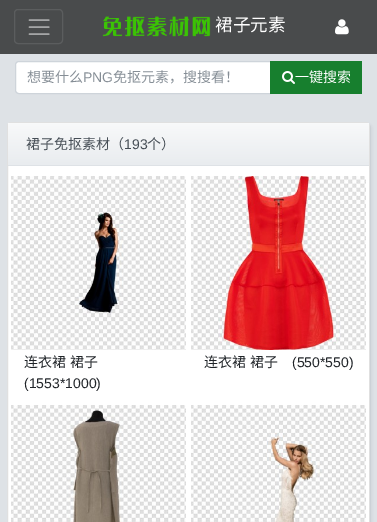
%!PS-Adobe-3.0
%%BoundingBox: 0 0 377 522
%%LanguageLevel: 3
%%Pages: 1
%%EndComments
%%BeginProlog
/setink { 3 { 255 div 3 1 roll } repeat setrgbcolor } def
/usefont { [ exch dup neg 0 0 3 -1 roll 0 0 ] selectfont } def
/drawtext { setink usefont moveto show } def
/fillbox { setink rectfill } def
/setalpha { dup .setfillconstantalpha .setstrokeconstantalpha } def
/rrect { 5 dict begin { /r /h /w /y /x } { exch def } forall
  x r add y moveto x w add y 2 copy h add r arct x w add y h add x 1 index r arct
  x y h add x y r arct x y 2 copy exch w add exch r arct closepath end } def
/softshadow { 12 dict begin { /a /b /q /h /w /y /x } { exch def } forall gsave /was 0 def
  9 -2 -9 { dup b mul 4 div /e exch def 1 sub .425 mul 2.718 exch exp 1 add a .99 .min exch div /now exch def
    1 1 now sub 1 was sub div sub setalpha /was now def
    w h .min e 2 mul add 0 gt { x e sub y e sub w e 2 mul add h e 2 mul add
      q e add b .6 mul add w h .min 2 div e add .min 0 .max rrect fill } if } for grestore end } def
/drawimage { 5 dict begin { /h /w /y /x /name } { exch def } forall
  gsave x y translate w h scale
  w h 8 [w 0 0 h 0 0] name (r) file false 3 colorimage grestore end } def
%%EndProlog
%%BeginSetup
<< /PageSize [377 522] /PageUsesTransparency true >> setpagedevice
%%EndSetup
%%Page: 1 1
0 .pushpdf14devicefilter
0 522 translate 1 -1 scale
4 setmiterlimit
0 0 377 522 222 226 230 fillbox
0 0 377 54 73 75 76 fillbox
91 93 94 setink
14.5 9.5 48 34 3.5 rrect stroke
(assets/img1.rgb) 28 19 22 16 drawimage
(assets/img2.rgb) 102 16 109 21 drawimage
(裙子元素) 215 31 /NotoSansCJKSC-Regular 17.5 255 255 255 drawtext
(assets/img3.rgb) 335 19 14 16 drawimage
18.5 62 moveto 270 62 lineto 270 93 lineto 18.5 93 lineto 17 93 16 92 16 90.5 curveto 16 64.5 lineto 16 63 17 62 18.5 62 curveto closepath fill
206 212 218 setink
19 61.5 moveto 270.5 61.5 lineto 270.5 93.5 lineto 19 93.5 lineto 17 93.5 15.5 92 15.5 90 curveto 15.5 65 lineto 15.5 63 17 61.5 19 61.5 curveto closepath stroke
(想要什么) 27 82 /NotoSansCJKSC-Regular 14 134 142 150 drawtext
(PNG) 83 82 /LiberationSans-Regular 14 134 142 150 drawtext
(免抠元素，搜搜看！) 113 82 /NotoSansCJKSC-Regular 14 134 142 150 drawtext
270 61 92 33 23 127 46 fillbox
(assets/img4.rgb) 282 71 13 13 drawimage
(一键搜索) 295 82 /NotoSansCJKSC-Regular 14 255 255 255 drawtext
173 181 189 setink
9 124 363 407 4 1.5 0.25 softshadow
255 255 255 setink
7 122 363 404 4 rrect fill
0.12 setalpha
0 0 0 setink
7.5 122.5 362 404 3.5 rrect stroke
1 setalpha
gsave 10.5 123 moveto 366.5 123 lineto 368 123 369 124 369 125.5 curveto 369 165 lineto 8 165 lineto 8 125.5 lineto 8 124 9 123 10.5 123 curveto closepath clip newpath
<< /ShadingType 2 /ColorSpace /DeviceRGB /Coords [189 165 189 123] /Extend [true true] /Function << /FunctionType 2 /Domain [0 1] /C0 [0.914 0.925 0.937] /C1 [0.973 0.976 0.98] /N 1 >> >> shfill grestore
8 165 361 1 222 226 230 fillbox
(裙子免抠素材（) 26 149 /NotoSansCJKSC-Regular 14 69 77 85 drawtext
(193) 124 149 /LiberationSans-Regular 14 69 77 85 drawtext
(个）) 147 149 /NotoSansCJKSC-Regular 14 69 77 85 drawtext
(assets/img5.rgb) 11 176 175 174 drawimage
33 37 41 setink
24 367 moveto 1 0 32 (连衣裙 裙子) widthshow
(\(1553*1000\)) 24 388 /LiberationSans-Regular 14 33 37 41 drawtext
(assets/img6.rgb) 191 176 175 174 drawimage
/NotoSansCJKSC-Regular 14 usefont
204 367 moveto 1 0 32 (连衣裙 裙子) widthshow
(\(550*550\)) 292 367 /LiberationSans-Regular 14 33 37 41 drawtext
(assets/img7.rgb) 11 405 175 117 drawimage
(assets/img8.rgb) 191 405 175 117 drawimage
.poppdf14devicefilter showpage
%%EOF
